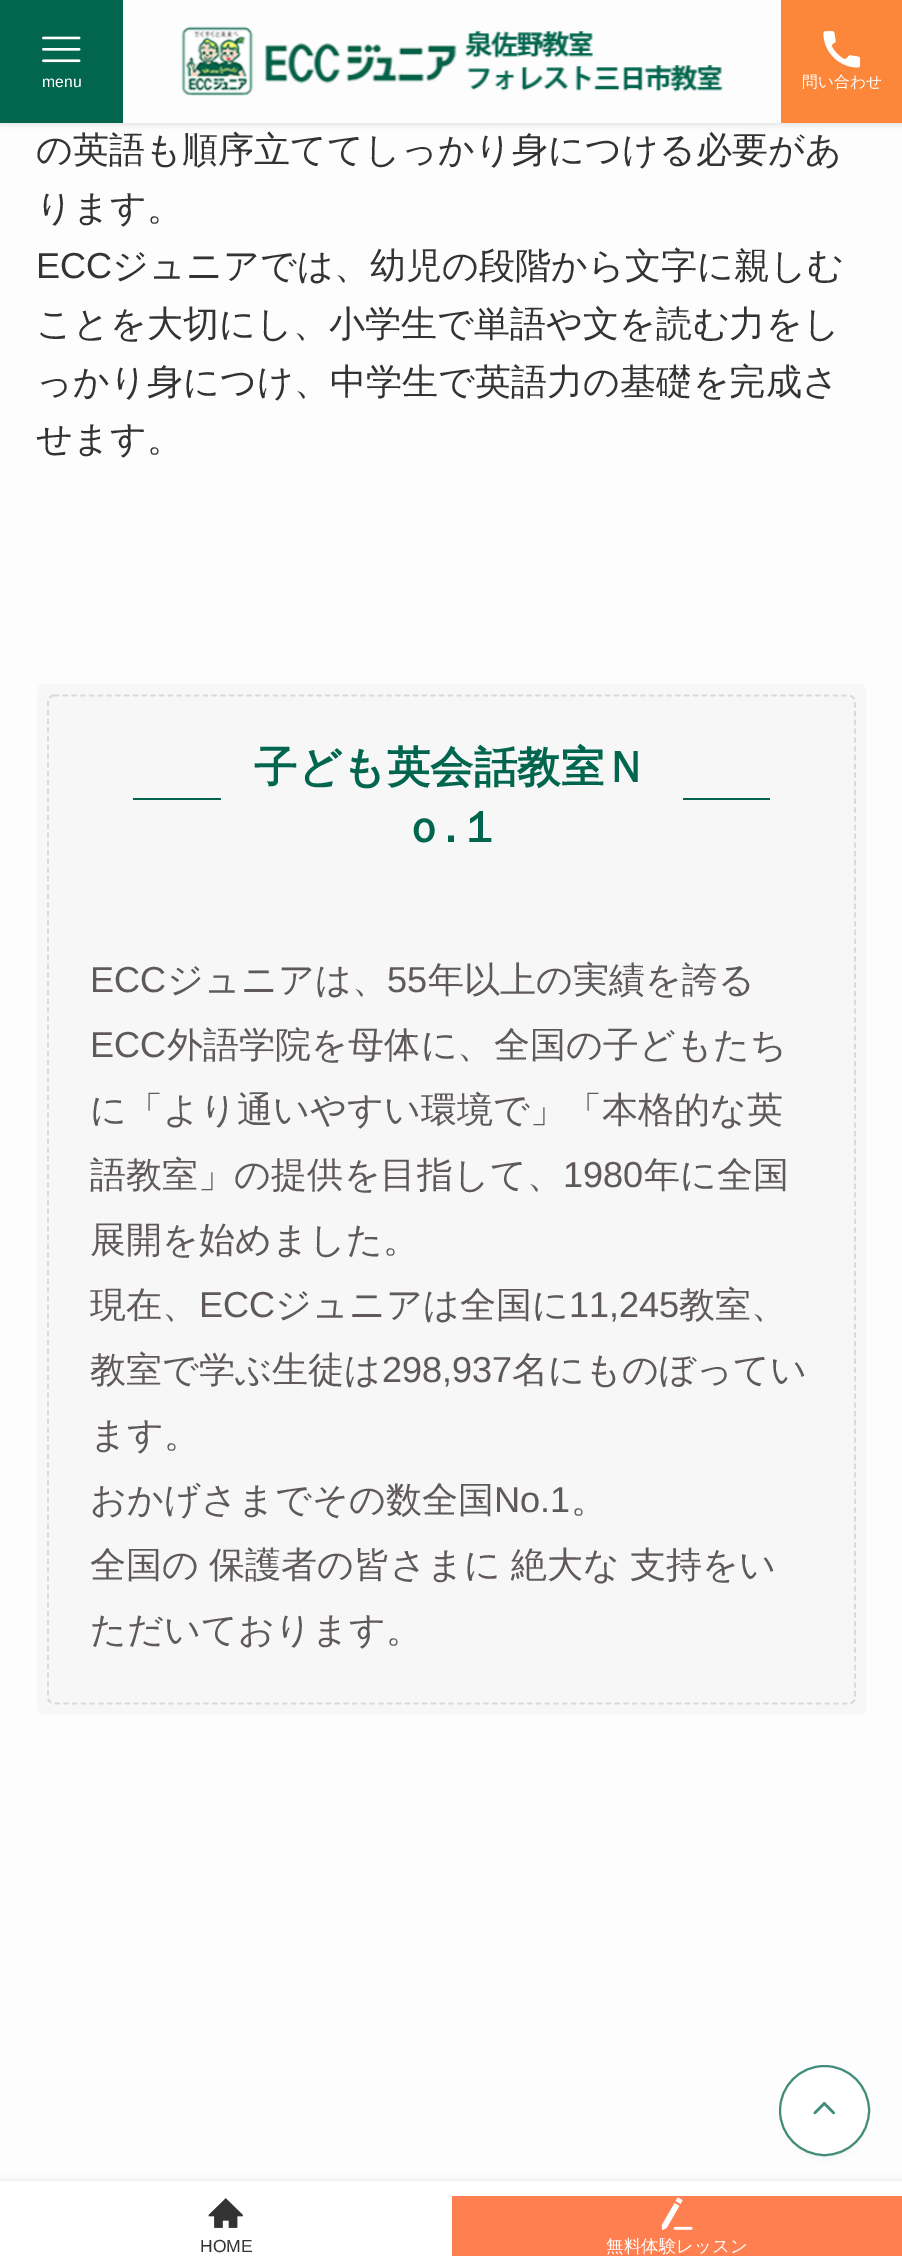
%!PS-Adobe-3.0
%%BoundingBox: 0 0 902 2267
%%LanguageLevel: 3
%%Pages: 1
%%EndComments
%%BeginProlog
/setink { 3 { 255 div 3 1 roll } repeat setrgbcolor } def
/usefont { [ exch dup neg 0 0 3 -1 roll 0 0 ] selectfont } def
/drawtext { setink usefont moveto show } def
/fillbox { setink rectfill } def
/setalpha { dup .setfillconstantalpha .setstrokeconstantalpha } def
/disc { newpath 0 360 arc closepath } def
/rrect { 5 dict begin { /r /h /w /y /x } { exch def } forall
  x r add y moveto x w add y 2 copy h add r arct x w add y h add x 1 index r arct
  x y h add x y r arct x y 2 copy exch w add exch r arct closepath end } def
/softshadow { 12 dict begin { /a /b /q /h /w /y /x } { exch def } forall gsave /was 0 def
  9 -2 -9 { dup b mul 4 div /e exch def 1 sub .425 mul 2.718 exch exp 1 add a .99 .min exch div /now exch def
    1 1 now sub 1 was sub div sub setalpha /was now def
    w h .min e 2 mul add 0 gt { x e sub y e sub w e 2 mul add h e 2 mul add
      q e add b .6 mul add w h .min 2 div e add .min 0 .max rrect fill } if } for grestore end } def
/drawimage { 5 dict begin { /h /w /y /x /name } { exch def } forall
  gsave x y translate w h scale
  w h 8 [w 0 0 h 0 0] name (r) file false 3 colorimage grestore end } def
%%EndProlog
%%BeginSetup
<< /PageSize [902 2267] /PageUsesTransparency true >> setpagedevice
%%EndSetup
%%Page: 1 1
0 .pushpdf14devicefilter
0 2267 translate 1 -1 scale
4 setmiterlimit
0 0 902 2267 253 253 253 fillbox
0 0 0 setink
0 2 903 122 0 3.5 0.12 softshadow
123 0 658 123 253 253 253 fillbox
0 0 123 123 2 102 78 fillbox
(assets/img1.rgb) 42 36 39 27 drawimage
(menu) 42 87 /LiberationSans-Regular 15.75 255 255 255 drawtext
(assets/img2.rgb) 181 26 542 70 drawimage
781 0 121 123 252 135 58 fillbox
(assets/img3.rgb) 823 31 38 37 drawimage
(問い合わせ) 802 87 /WenQuanYiZenHei-Medium 15.75 255 255 255 drawtext
(の英語も順序立ててしっかり身につける必要があ) 36 162 /WenQuanYiZenHei-Medium 36.1 51 51 51 drawtext
(ります。) 36 220 /WenQuanYiZenHei-Medium 36.1 51 51 51 drawtext
(ECC) 36 278 /LiberationSans-Regular 36.1 51 51 51 drawtext
(ジュニアでは、幼児の段階から文字に親しむ) 112 278 /WenQuanYiZenHei-Medium 36.1 51 51 51 drawtext
(ことを大切にし、小学生で単語や文を読む力をし) 36 336 /WenQuanYiZenHei-Medium 36.1 51 51 51 drawtext
(っかり身につけ、中学生で英語力の基礎を完成さ) 36 394 /WenQuanYiZenHei-Medium 36.1 51 51 51 drawtext
(せます。) 36 451 /WenQuanYiZenHei-Medium 36.1 51 51 51 drawtext
247 247 247 setink
37 684 829 1031 7 rrect fill
(ECC) 90 992 /LiberationSans-Regular 36.1 95 90 89 drawtext
(ジュニアは、) 167 992 /WenQuanYiZenHei-Medium 36.1 95 90 89 drawtext
(55) 387 992 /LiberationSans-Regular 36.1 95 90 89 drawtext
(年以上の実績を誇る) 428 992 /WenQuanYiZenHei-Medium 36.1 95 90 89 drawtext
(ECC) 90 1057 /LiberationSans-Regular 36.1 95 90 89 drawtext
(外語学院を母体に、全国の子どもたち) 167 1057 /WenQuanYiZenHei-Medium 36.1 95 90 89 drawtext
(に「より通いやすい環境で」「本格的な英) 90 1122 /WenQuanYiZenHei-Medium 36.1 95 90 89 drawtext
(語教室」の提供を目指して、) 90 1187 /WenQuanYiZenHei-Medium 36.1 95 90 89 drawtext
(1980) 563 1187 /LiberationSans-Regular 36.1 95 90 89 drawtext
(年に全国) 644 1187 /WenQuanYiZenHei-Medium 36.1 95 90 89 drawtext
(展開を始めました。) 90 1252 /WenQuanYiZenHei-Medium 36.1 95 90 89 drawtext
(現在、) 90 1317 /WenQuanYiZenHei-Medium 36.1 95 90 89 drawtext
(ECC) 199 1317 /LiberationSans-Regular 36.1 95 90 89 drawtext
(ジュニアは全国に) 275 1317 /WenQuanYiZenHei-Medium 36.1 95 90 89 drawtext
(11,245) 569 1317 /LiberationSans-Regular 36.1 95 90 89 drawtext
(教室、) 679 1317 /WenQuanYiZenHei-Medium 36.1 95 90 89 drawtext
(教室で学ぶ生徒は) 90 1382 /WenQuanYiZenHei-Medium 36.1 95 90 89 drawtext
(298,937) 382 1382 /LiberationSans-Regular 36.1 95 90 89 drawtext
(名にものぼってい) 512 1382 /WenQuanYiZenHei-Medium 36.1 95 90 89 drawtext
(ます。) 90 1447 /WenQuanYiZenHei-Medium 36.1 95 90 89 drawtext
(おかげさまでその数全国) 90 1512 /WenQuanYiZenHei-Medium 36.1 95 90 89 drawtext
(No.1) 494 1512 /LiberationSans-Regular 36.1 95 90 89 drawtext
(。) 571 1512 /WenQuanYiZenHei-Medium 36.1 95 90 89 drawtext
90 1577 moveto -1 0 32 (全国の 保護者の皆さまに 絶大な 支持をい) widthshow
(ただいております。) 90 1642 /WenQuanYiZenHei-Medium 36.1 95 90 89 drawtext
218 218 218 setink
1.8 setlinewidth
[5.25 3.5] 0 setdash
54 695.5 moveto 849 695.5 lineto 852 695.5 855 698.5 855 702 curveto 855 1697.5 lineto 855 1701 852 1703.5 849 1703.5 curveto 54 1703.5 lineto 51 1703.5 48 1701 48 1697.5 curveto 48 702 lineto 48 698.5 51 695.5 54 695.5 curveto closepath stroke
/WenQuanYiZenHei-Bold 43.25 usefont
2 102 78 setink
254 782 moveto 0.25 0 (子ども英会話教室Ｎ) ashow
133 798 88 2 2 102 78 fillbox
683 798 87 2 2 102 78 fillbox
402 842 moveto 0.25 0 (ｏ) ashow
/LiberationSans-Bold 43.25 usefont
445 842 moveto 0.25 0 (.) ashow
/WenQuanYiZenHei-Bold 43.25 usefont
458 842 moveto 0.25 0 (１) ashow
63 63 63 setink
786 2079 77 77 38.5 3.5 0.1 softshadow
255 255 255 setink
824.5 2110.5 44.5 disc gsave fill grestore
65 140 122 setink
2 setlinewidth
[] 0 setdash
stroke
(assets/img4.rgb) 813 2101 22 14 drawimage
0 0 0 setink
0 2181 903 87 0 3.5 0.1 softshadow
0 2181 902 86 255 255 255 fillbox
(assets/img5.rgb) 208 2198 35 30 drawimage
(HOME) 200 2252 /LiberationSans-Regular 17.5 51 51 51 drawtext
452 2196 450 60 255 127 80 fillbox
(assets/img6.rgb) 661 2197 32 33 drawimage
(無料体験レッスン) 606 2252 /WenQuanYiZenHei-Medium 17.5 255 255 255 drawtext
.poppdf14devicefilter showpage
%%EOF
